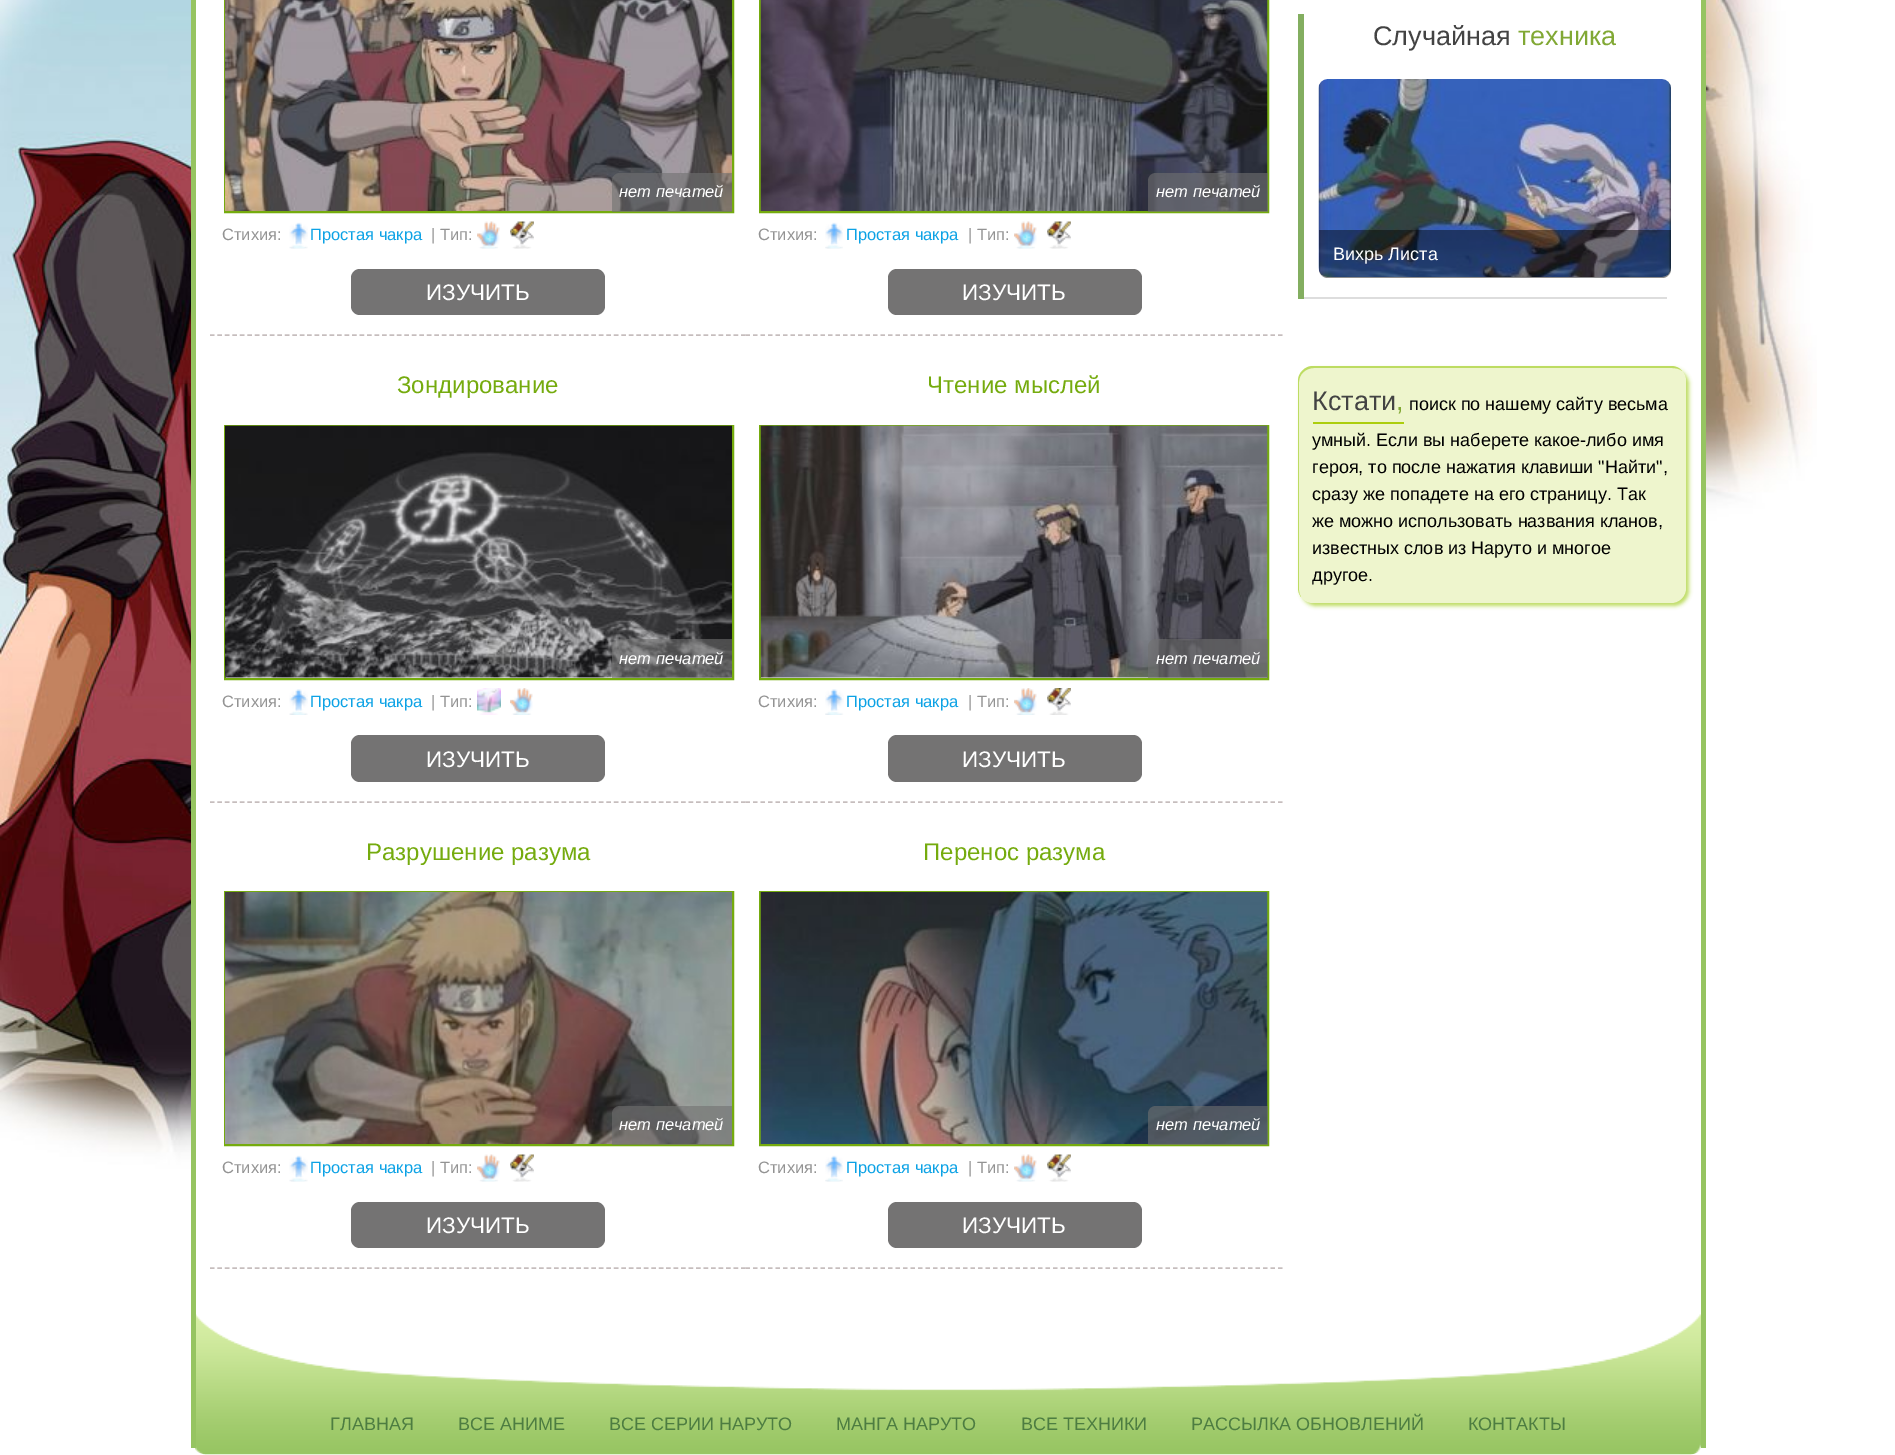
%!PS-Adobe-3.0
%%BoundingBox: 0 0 1895 1455
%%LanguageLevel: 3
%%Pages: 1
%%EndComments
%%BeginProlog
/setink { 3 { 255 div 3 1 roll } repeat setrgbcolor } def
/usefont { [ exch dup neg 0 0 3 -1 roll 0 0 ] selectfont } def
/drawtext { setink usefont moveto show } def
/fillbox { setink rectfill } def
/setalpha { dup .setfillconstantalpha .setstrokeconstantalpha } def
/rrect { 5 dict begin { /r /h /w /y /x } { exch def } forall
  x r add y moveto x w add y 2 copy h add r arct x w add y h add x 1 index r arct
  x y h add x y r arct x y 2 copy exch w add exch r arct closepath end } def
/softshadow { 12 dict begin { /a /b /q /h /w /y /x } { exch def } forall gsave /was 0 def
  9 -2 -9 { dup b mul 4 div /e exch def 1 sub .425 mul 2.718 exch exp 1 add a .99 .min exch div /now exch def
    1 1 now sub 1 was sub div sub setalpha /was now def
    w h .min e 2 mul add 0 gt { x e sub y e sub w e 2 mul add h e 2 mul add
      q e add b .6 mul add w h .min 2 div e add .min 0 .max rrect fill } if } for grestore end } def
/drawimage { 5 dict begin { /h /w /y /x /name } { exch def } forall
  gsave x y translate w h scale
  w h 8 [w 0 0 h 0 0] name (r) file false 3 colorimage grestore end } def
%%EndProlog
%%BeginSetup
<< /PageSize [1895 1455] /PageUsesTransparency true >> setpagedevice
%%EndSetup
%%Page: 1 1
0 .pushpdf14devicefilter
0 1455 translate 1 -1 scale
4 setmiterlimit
0 0 1895 1455 255 255 255 fillbox
(assets/img1.rgb) 0 0 1817 1171 drawimage
196 0 1505 1171 255 255 255 fillbox
1701 0 5 1448 150 196 97 fillbox
191 0 5 1314 150 196 97 fillbox
198 189 189 setink
1.5 setlinewidth
[4.5 2.98] 0 setdash
210 335 moveto 745.5 335 lineto stroke
117 171 14 setink
2 setlinewidth
[] 0 setdash
225 -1 508 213 rectstroke
(assets/img2.rgb) 225 0 507 211 drawimage
0.6 setalpha
112 112 112 setink
620 173 moveto 732 173 lineto 732 212 lineto 612 212 lineto 612 181 lineto 612 176.5 615.5 173 620 173 curveto closepath fill
1 setalpha
(нет печатей) 619 197 /LiberationSans-Italic 16.5 255 255 255 drawtext
(Стихия:) 222 240 /LiberationSans-Regular 16.5 147 147 147 drawtext
(assets/img3.rgb) 289 222 19 27 drawimage
(Простая чакра) 310 240 /LiberationSans-Regular 16.5 12 162 229 drawtext
(| Тип:) 431 240 /LiberationSans-Regular 16.5 147 147 147 drawtext
(assets/img4.rgb) 477 221 23 28 drawimage
(assets/img5.rgb) 510 221 24 28 drawimage
116 115 115 setink
351 269 254 46 9 rrect fill
(ИЗУЧИТЬ) 426 300 /LiberationSans-Regular 22.5 255 255 255 drawtext
198 189 189 setink
1.5 setlinewidth
[4.5 3] 0 setdash
745.5 335 moveto 1282.5 335 lineto stroke
117 171 14 setink
2 setlinewidth
[] 0 setdash
760 -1 508 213 rectstroke
(assets/img6.rgb) 760 0 508 211 drawimage
0.6 setalpha
112 112 112 setink
1156 173 moveto 1268 173 lineto 1268 212 lineto 1148 212 lineto 1148 181 lineto 1148 176.5 1151.5 173 1156 173 curveto closepath fill
1 setalpha
(нет печатей) 1156 197 /LiberationSans-Italic 16.5 255 255 255 drawtext
(Стихия:) 758 240 /LiberationSans-Regular 16.5 147 147 147 drawtext
(assets/img7.rgb) 825 222 18 27 drawimage
(Простая чакра) 846 240 /LiberationSans-Regular 16.5 12 162 229 drawtext
(| Тип:) 968 240 /LiberationSans-Regular 16.5 147 147 147 drawtext
(assets/img8.rgb) 1014 221 23 28 drawimage
(assets/img9.rgb) 1047 221 24 28 drawimage
116 115 115 setink
888 269 254 46 9 rrect fill
(ИЗУЧИТЬ) 962 300 /LiberationSans-Regular 22.5 255 255 255 drawtext
198 189 189 setink
1.5 setlinewidth
[4.5 2.98] 0 setdash
210 802 moveto 745.5 802 lineto stroke
(Зондирование) 397 393 /LiberationSans-Regular 24 117 171 14 drawtext
2 setlinewidth
[] 0 setdash
225 426 508 253 rectstroke
(assets/img10.rgb) 225 425 507 253 drawimage
0.6 setalpha
112 112 112 setink
620 639 moveto 732 639 lineto 732 678 lineto 612 678 lineto 612 647 lineto 612 642.5 615.5 639 620 639 curveto closepath fill
1 setalpha
(нет печатей) 619 664 /LiberationSans-Italic 16.5 255 255 255 drawtext
(Стихия:) 222 707 /LiberationSans-Regular 16.5 147 147 147 drawtext
(assets/img11.rgb) 289 689 19 26 drawimage
(Простая чакра) 310 707 /LiberationSans-Regular 16.5 12 162 229 drawtext
(| Тип:) 431 707 /LiberationSans-Regular 16.5 147 147 147 drawtext
(assets/img12.rgb) 477 688 24 27 drawimage
(assets/img13.rgb) 510 688 23 27 drawimage
116 115 115 setink
351 735 254 47 9 rrect fill
(ИЗУЧИТЬ) 426 767 /LiberationSans-Regular 22.5 255 255 255 drawtext
198 189 189 setink
1.5 setlinewidth
[4.5 3] 0 setdash
745.5 802 moveto 1282.5 802 lineto stroke
(Чтение мыслей) 927 393 /LiberationSans-Regular 24 117 171 14 drawtext
2 setlinewidth
[] 0 setdash
760 426 508 253 rectstroke
(assets/img14.rgb) 760 425 508 253 drawimage
0.6 setalpha
112 112 112 setink
1156 639 moveto 1268 639 lineto 1268 678 lineto 1148 678 lineto 1148 647 lineto 1148 642.5 1151.5 639 1156 639 curveto closepath fill
1 setalpha
(нет печатей) 1156 664 /LiberationSans-Italic 16.5 255 255 255 drawtext
(Стихия:) 758 707 /LiberationSans-Regular 16.5 147 147 147 drawtext
(assets/img15.rgb) 825 689 19 26 drawimage
(Простая чакра) 846 707 /LiberationSans-Regular 16.5 12 162 229 drawtext
(| Тип:) 968 707 /LiberationSans-Regular 16.5 147 147 147 drawtext
(assets/img13.rgb) 1014 688 23 27 drawimage
(assets/img16.rgb) 1047 688 24 27 drawimage
116 115 115 setink
888 735 254 47 9 rrect fill
(ИЗУЧИТЬ) 962 767 /LiberationSans-Regular 22.5 255 255 255 drawtext
198 189 189 setink
1.5 setlinewidth
[4.5 2.98] 0 setdash
210 1268 moveto 745.5 1268 lineto stroke
(Разрушение разума) 366 860 /LiberationSans-Regular 24 117 171 14 drawtext
2 setlinewidth
[] 0 setdash
225 892 508 253 rectstroke
(assets/img17.rgb) 225 892 507 252 drawimage
0.6 setalpha
112 112 112 setink
620 1106 moveto 732 1106 lineto 732 1145 lineto 612 1145 lineto 612 1114 lineto 612 1109.5 615.5 1106 620 1106 curveto closepath fill
1 setalpha
(нет печатей) 619 1130 /LiberationSans-Italic 16.5 255 255 255 drawtext
(Стихия:) 222 1173 /LiberationSans-Regular 16.5 147 147 147 drawtext
(assets/img3.rgb) 289 1155 19 27 drawimage
(Простая чакра) 310 1173 /LiberationSans-Regular 16.5 12 162 229 drawtext
(| Тип:) 431 1173 /LiberationSans-Regular 16.5 147 147 147 drawtext
(assets/img4.rgb) 477 1154 23 28 drawimage
(assets/img5.rgb) 510 1154 24 28 drawimage
116 115 115 setink
351 1202 254 46 9 rrect fill
(ИЗУЧИТЬ) 426 1233 /LiberationSans-Regular 22.5 255 255 255 drawtext
198 189 189 setink
1.5 setlinewidth
[4.5 3] 0 setdash
745.5 1268 moveto 1282.5 1268 lineto stroke
(Перенос разума) 923 860 /LiberationSans-Regular 24 117 171 14 drawtext
2 setlinewidth
[] 0 setdash
760 892 508 253 rectstroke
(assets/img18.rgb) 760 892 508 252 drawimage
0.6 setalpha
112 112 112 setink
1156 1106 moveto 1268 1106 lineto 1268 1145 lineto 1148 1145 lineto 1148 1114 lineto 1148 1109.5 1151.5 1106 1156 1106 curveto closepath fill
1 setalpha
(нет печатей) 1156 1130 /LiberationSans-Italic 16.5 255 255 255 drawtext
(Стихия:) 758 1173 /LiberationSans-Regular 16.5 147 147 147 drawtext
(assets/img7.rgb) 825 1155 18 27 drawimage
(Простая чакра) 846 1173 /LiberationSans-Regular 16.5 12 162 229 drawtext
(| Тип:) 968 1173 /LiberationSans-Regular 16.5 147 147 147 drawtext
(assets/img8.rgb) 1014 1154 23 28 drawimage
(assets/img9.rgb) 1047 1154 24 28 drawimage
116 115 115 setink
888 1202 254 46 9 rrect fill
(ИЗУЧИТЬ) 962 1233 /LiberationSans-Regular 22.5 255 255 255 drawtext
1298 14 6 285 131 174 96 fillbox
(Случайная) 1373 45 /LiberationSans-Regular 27 67 67 67 drawtext
(техника) 1518 45 /LiberationSans-Regular 27 129 168 52 drawtext
(assets/img19.rgb) 1318 79 353 198 drawimage
0.45 setalpha
0 0 0 setink
1319 230 moveto 1671 230 lineto 1671 269 lineto 1671 274 1667 278 1662 278 curveto 1328 278 lineto 1323 278 1319 274 1319 269 curveto closepath fill
1 setalpha
(Вихрь Листа) 1333 260 /LiberationSans-Regular 18 255 255 255 drawtext
1304 297 363 2 221 221 221 fillbox
189 220 98 setink
1301 369 388 237 15 2 1 softshadow
238 245 205 setink
1298 366 388 237 15 rrect fill
189 220 98 setink
1314 368 moveto 1672 368 lineto 1676 368 1680 369 1682 371 curveto 1680 368 1676 366 1671 366 curveto 1313 366 lineto 1305 366 1298 373 1298 381 curveto 1298 588 lineto 1298 591 1299 594 1301 597 curveto 1300 595 1299 593 1299 590 curveto 1299 382 lineto 1299 374 1306 368 1314 368 curveto closepath fill
1313 422 91 2 172 206 13 fillbox
(Кстати) 1312 410 /LiberationSans-Regular 27 67 67 67 drawtext
(,) 1396 410 /LiberationSans-Regular 27 129 168 52 drawtext
(поиск по нашему сайту весьма) 1409 410 /LiberationSans-Regular 18 0 0 0 drawtext
(умный. Если вы наберете какое-либо имя) 1312 446 /LiberationSans-Regular 18 0 0 0 drawtext
(героя, то после нажатия клавиши "Найти",) 1312 473 /LiberationSans-Regular 18 0 0 0 drawtext
(сразу же попадете на его страницу. Так) 1312 500 /LiberationSans-Regular 18 0 0 0 drawtext
(же можно использовать названия кланов,) 1312 527 /LiberationSans-Regular 18 0 0 0 drawtext
(известных слов из Наруто и многое) 1312 554 /LiberationSans-Regular 18 0 0 0 drawtext
(другое.) 1312 581 /LiberationSans-Regular 18 0 0 0 drawtext
(assets/img20.rgb) 195 1314 1506 141 drawimage
191 1314 5 134 150 196 97 fillbox
(ГЛАВНАЯ) 330 1430 /LiberationSans-Regular 18 77 125 65 drawtext
(ВСЕ АНИМЕ) 458 1430 /LiberationSans-Regular 18 77 125 65 drawtext
(ВСЕ СЕРИИ НАРУТО) 609 1430 /LiberationSans-Regular 18 77 125 65 drawtext
(МАНГА НАРУТО) 836 1430 /LiberationSans-Regular 18 77 125 65 drawtext
(ВСЕ ТЕХНИКИ) 1021 1430 /LiberationSans-Regular 18 77 125 65 drawtext
(РАССЫЛКА ОБНОВЛЕНИЙ) 1191 1430 /LiberationSans-Regular 18 77 125 65 drawtext
(КОНТАКТЫ) 1468 1430 /LiberationSans-Regular 18 77 125 65 drawtext
.poppdf14devicefilter showpage
%%EOF
